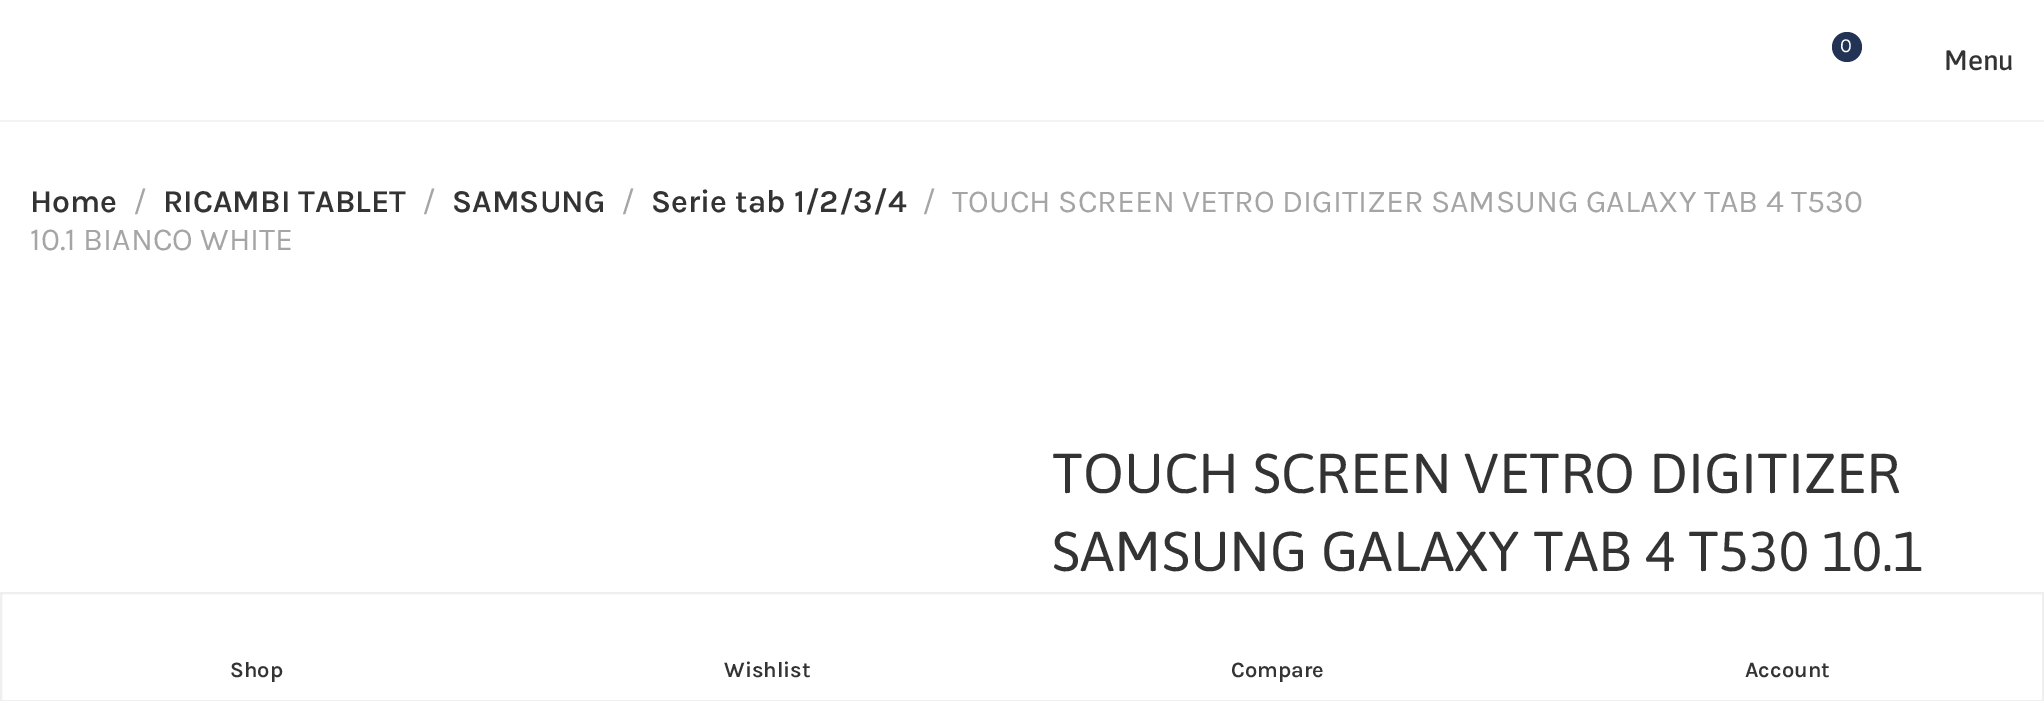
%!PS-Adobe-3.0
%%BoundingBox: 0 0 2044 701
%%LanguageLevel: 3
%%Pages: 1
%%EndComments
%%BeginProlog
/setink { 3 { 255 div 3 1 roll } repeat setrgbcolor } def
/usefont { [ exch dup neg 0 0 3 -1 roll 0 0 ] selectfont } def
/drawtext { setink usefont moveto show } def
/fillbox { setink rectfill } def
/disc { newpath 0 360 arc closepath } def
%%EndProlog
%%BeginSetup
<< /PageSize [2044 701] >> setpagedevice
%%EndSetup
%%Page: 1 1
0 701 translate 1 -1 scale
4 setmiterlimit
0 0 2044 701 255 255 255 fillbox
0 120 2044 2 243 243 243 fillbox
34 51 85 setink
1847 47 15 disc fill
(0) 1840 52 /Karla-Regular 20 255 255 255 drawtext
(Menu) 1944 70 /Asap-Medium 28 51 51 51 drawtext
(Home) 30 212 /Karla-SemiBold 32 51 51 51 drawtext
(/) 133 212 /Karla-Regular 32 165 165 165 drawtext
(RICAMBI TABLET) 163 212 /Karla-SemiBold 32 51 51 51 drawtext
(/) 422 212 /Karla-Regular 32 165 165 165 drawtext
(SAMSUNG) 452 212 /Karla-SemiBold 32 51 51 51 drawtext
(/) 621 212 /Karla-Regular 32 165 165 165 drawtext
(Serie tab 1/2/3/4) 651 212 /Karla-SemiBold 32 51 51 51 drawtext
(/) 922 212 /Karla-Regular 32 165 165 165 drawtext
(TOUCH SCREEN VETRO DIGITIZER SAMSUNG GALAXY TAB 4 T530) 952 212 /Karla-Regular 32 165 165 165 drawtext
(10.1 BIANCO WHITE) 30 250 /Karla-Regular 32 165 165 165 drawtext
(TOUCH SCREEN VETRO DIGITIZER) 1052 493 /Asap-Regular 56 51 51 51 drawtext
(SAMSUNG GALAXY TAB 4 T530 10.1) 1052 571 /Asap-Regular 56 51 51 51 drawtext
239 239 239 setink
2 setlinewidth
1 593 2042 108 rectstroke
gsave
22 660 470 22 rectclip
(Shop) 230 677 /Karla-SemiBold 22 51 51 51 drawtext
grestore
(Wishlist) 724 677 /Karla-SemiBold 22 51 51 51 drawtext
gsave
1042 660 470 22 rectclip
(Compare) 1231 677 /Karla-SemiBold 22 51 51 51 drawtext
grestore
(Account) 1745 677 /Karla-SemiBold 22 51 51 51 drawtext
showpage
%%EOF
